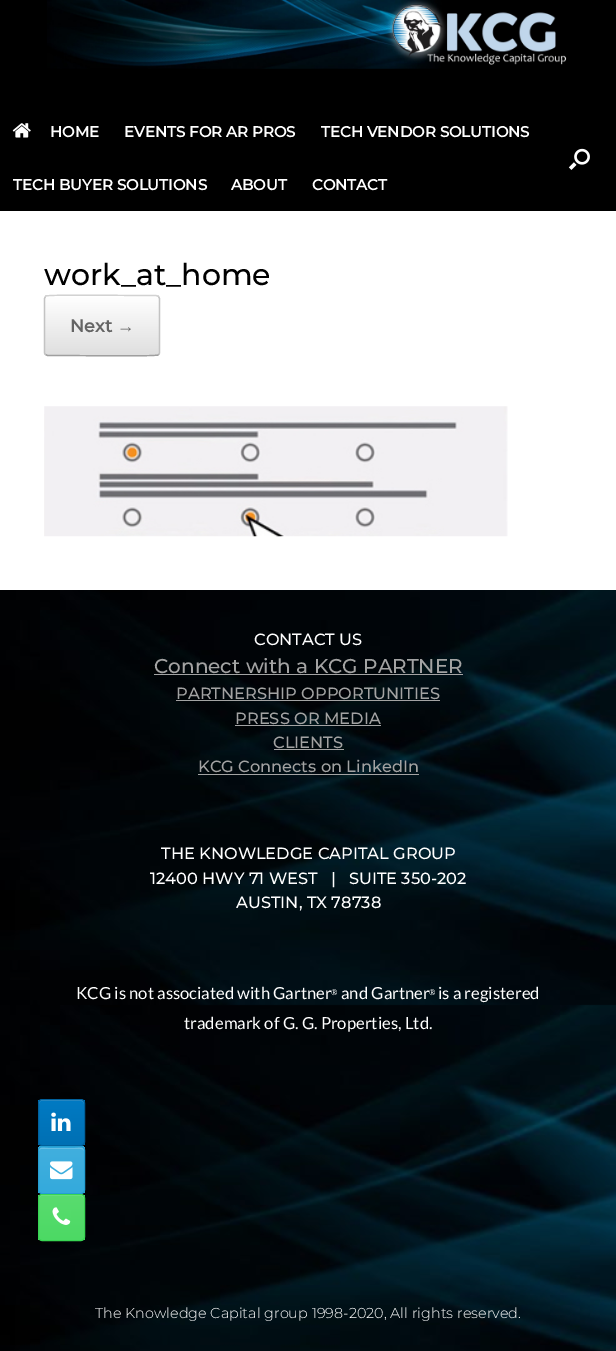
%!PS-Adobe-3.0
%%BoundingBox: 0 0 616 1351
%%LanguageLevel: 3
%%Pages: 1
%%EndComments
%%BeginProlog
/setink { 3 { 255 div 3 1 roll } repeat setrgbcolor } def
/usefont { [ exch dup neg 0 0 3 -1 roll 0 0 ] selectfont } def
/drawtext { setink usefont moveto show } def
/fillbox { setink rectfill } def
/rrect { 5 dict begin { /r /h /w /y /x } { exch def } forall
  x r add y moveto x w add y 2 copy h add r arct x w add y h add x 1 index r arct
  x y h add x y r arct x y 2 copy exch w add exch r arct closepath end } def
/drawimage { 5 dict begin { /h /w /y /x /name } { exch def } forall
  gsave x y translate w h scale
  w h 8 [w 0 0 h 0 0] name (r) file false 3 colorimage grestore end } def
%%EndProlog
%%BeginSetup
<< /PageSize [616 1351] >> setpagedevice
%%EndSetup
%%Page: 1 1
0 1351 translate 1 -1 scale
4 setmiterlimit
0 0 616 1351 0 0 0 fillbox
(assets/img1.rgb) 47 0 520 69 drawimage
(assets/img2.rgb) 12 123 19 15 drawimage
(HOME) 50 137 /Montserrat-Bold 15 255 255 255 drawtext
(EVENTS FOR AR PROS) 124 137 /Montserrat-Bold 15 255 255 255 drawtext
(TECH VENDOR SOLUTIONS) 321 137 /Montserrat-Bold 15 255 255 255 drawtext
(TECH BUYER SOLUTIONS) 13 190 /Montserrat-Bold 15 255 255 255 drawtext
(ABOUT) 231 190 /Montserrat-Bold 15 255 255 255 drawtext
(CONTACT) 312 190 /Montserrat-Bold 15 255 255 255 drawtext
(assets/img3.rgb) 568 148 22 22 drawimage
0 211 616 379 255 255 255 fillbox
(work_at_home) 44 285 /Montserrat-Medium 30 0 0 0 drawtext
gsave
44 295 116 61 4 rrect clip newpath
gsave 44 295 moveto 160 295 lineto 160 296 lineto 44 296 lineto closepath clip newpath
<< /ShadingType 2 /ColorSpace /DeviceRGB /Coords [45 296 45 238] /Extend [true true] /Function << /FunctionType 2 /Domain [0 1] /C0 [0.875 0.875 0.875] /C1 [1 1 1] /N 1 >> >> shfill grestore
gsave 44 296 moveto 160 296 lineto 160 355 lineto 44 355 lineto closepath clip newpath
<< /ShadingType 2 /ColorSpace /DeviceRGB /Coords [45 355 45 296] /Extend [true true] /Function << /FunctionType 2 /Domain [0 1] /C0 [0.875 0.875 0.875] /C1 [1 1 1] /N 1 >> >> shfill grestore
grestore
210 210 210 setink
1.2 setlinewidth
45.5 296.5 moveto 46 296 lineto 48 294.5 128.5 295.5 138 295.5 curveto 156 295.5 lineto 158.5 296.5 lineto stroke
195 195 195 setink
158.5 296.5 moveto 159.5 298.5 lineto 159.5 353 lineto 158.5 354.5 lineto stroke
159 159 159 setink
158.5 354.5 moveto 158 355 lineto 155.5 356.5 75 355.5 65.5 355.5 curveto 47.5 355.5 lineto 45.5 354.5 lineto stroke
195 195 195 setink
45.5 354.5 moveto 44.5 353 lineto 44.5 298.5 lineto 45.5 296.5 lineto stroke
(Next) 70 332 /Montserrat-Bold 17.5 100 100 100 drawtext
(→) 117 332 /LiberationSerif-Bold 17.5 100 100 100 drawtext
(assets/img4.rgb) 44 406 464 131 drawimage
(assets/img5.rgb) 0 590 616 761 drawimage
(CONTACT US) 254 645 /Montserrat-Medium 16.25 255 255 255 drawtext
(Connect with a KCG PARTNER) 154 673 /Montserrat-Medium 20 163 163 163 drawtext
154 674 309 1 163 163 163 fillbox
(PARTNERSHIP OPPORTUNITIES) 176 699 /Montserrat-Medium 16.25 163 163 163 drawtext
176 700 264 1 163 163 163 fillbox
(PRESS OR MEDIA) 235 724 /Montserrat-Medium 16.25 163 163 163 drawtext
235 725 146 1 163 163 163 fillbox
(CLIENTS) 273 748 /Montserrat-Medium 16.25 163 163 163 drawtext
274 749 70 1 163 163 163 fillbox
(KCG Connects on LinkedIn) 198 772 /Montserrat-Medium 16.25 163 163 163 drawtext
198 774 221 1 163 163 163 fillbox
(THE KNOWLEDGE CAPITAL GROUP) 161 859 /Montserrat-Medium 16.25 255 255 255 drawtext
(12400 HWY 71 WEST   |   SUITE 350-202) 150 884 /Montserrat-Medium 16.25 255 255 255 drawtext
(AUSTIN, TX 78738) 236 908 /Montserrat-Medium 16.25 255 255 255 drawtext
(KCG is not associated with Gartner) 76 999 /Lato-Regular 16.7 255 255 255 drawtext
(®) 331 995 /Lato-Regular 8 255 255 255 drawtext
(and Gartner) 341 999 /Lato-Regular 16.7 255 255 255 drawtext
(®) 429 995 /Lato-Regular 8 255 255 255 drawtext
(is a registered) 438 999 /Lato-Regular 16.7 255 255 255 drawtext
(trademark of G. G. Properties, Ltd.) 184 1029 /Lato-Regular 16.7 255 255 255 drawtext
gsave
38 1099 47 47 4 rrect clip newpath
gsave 38 1100 moveto 85 1100 lineto 85 1145 lineto 38 1145 lineto closepath clip newpath
<< /ShadingType 2 /ColorSpace /DeviceRGB /Coords [61 1145 61 1100] /Extend [true true] /Function << /FunctionType 2 /Domain [0 1] /C0 [0 0.439 0.706] /C1 [0 0.478 0.765] /N 1 >> >> shfill grestore
grestore
51 149 207 setink
41 1101 moveto 81 1101 lineto 83 1101 84 1102 84 1104 curveto 84 1098 80 1100 75 1100 curveto 48 1100 lineto 43 1100 39 1098 39 1104 curveto 39 1102 40 1101 41 1101 curveto closepath fill
0 96 155 setink
1 setlinewidth
38.5 1099.5 46 46 3.5 rrect stroke
(assets/img6.rgb) 51 1112 20 19 drawimage
gsave
38 1146 47 48 4 rrect clip newpath
gsave 38 1146 moveto 85 1146 lineto 85 1148 lineto 38 1148 lineto closepath clip newpath
<< /ShadingType 2 /ColorSpace /DeviceRGB /Coords [61 1148 61 1103] /Extend [true true] /Function << /FunctionType 2 /Domain [0 1] /C0 [0.204 0.667 0.863] /C1 [0.255 0.686 0.871] /N 1 >> >> shfill grestore
gsave 38 1148 moveto 85 1148 lineto 85 1193 lineto 38 1193 lineto closepath clip newpath
<< /ShadingType 2 /ColorSpace /DeviceRGB /Coords [61 1193 61 1148] /Extend [true true] /Function << /FunctionType 2 /Domain [0 1] /C0 [0.204 0.667 0.863] /C1 [0.255 0.686 0.871] /N 1 >> >> shfill grestore
grestore
103 191 229 setink
41 1149 moveto 81 1149 lineto 83 1149 84 1150 84 1151 curveto 84 1146 78 1148 75 1148 curveto 48 1148 lineto 45 1148 39 1146 39 1151 curveto 39 1150 40 1149 41 1149 curveto closepath fill
36 158 210 setink
38.5 1146.5 46 47 3.5 rrect stroke
(assets/img7.rgb) 50 1161 23 19 drawimage
gsave
38 1194 47 47 4 rrect clip newpath
gsave 38 1195 moveto 85 1195 lineto 85 1240 lineto 38 1240 lineto closepath clip newpath
<< /ShadingType 2 /ColorSpace /DeviceRGB /Coords [61 1240 61 1195] /Extend [true true] /Function << /FunctionType 2 /Domain [0 1] /C0 [0.298 0.851 0.392] /C1 [0.349 0.863 0.435] /N 1 >> >> shfill grestore
grestore
122 227 140 setink
41 1196 moveto 81 1196 lineto 83 1196 84 1197 84 1199 curveto 84 1193 80 1195 75 1195 curveto 48 1195 lineto 43 1195 39 1193 39 1199 curveto 39 1197 40 1196 41 1196 curveto closepath fill
55 213 82 setink
38.5 1194.5 46 46 3.5 rrect stroke
(assets/img8.rgb) 52 1207 19 18 drawimage
(The Knowledge Capital group 1998-2020, All rights reserved.) 95 1318 /Montserrat-Light 14.4 255 255 255 drawtext
showpage
%%EOF
